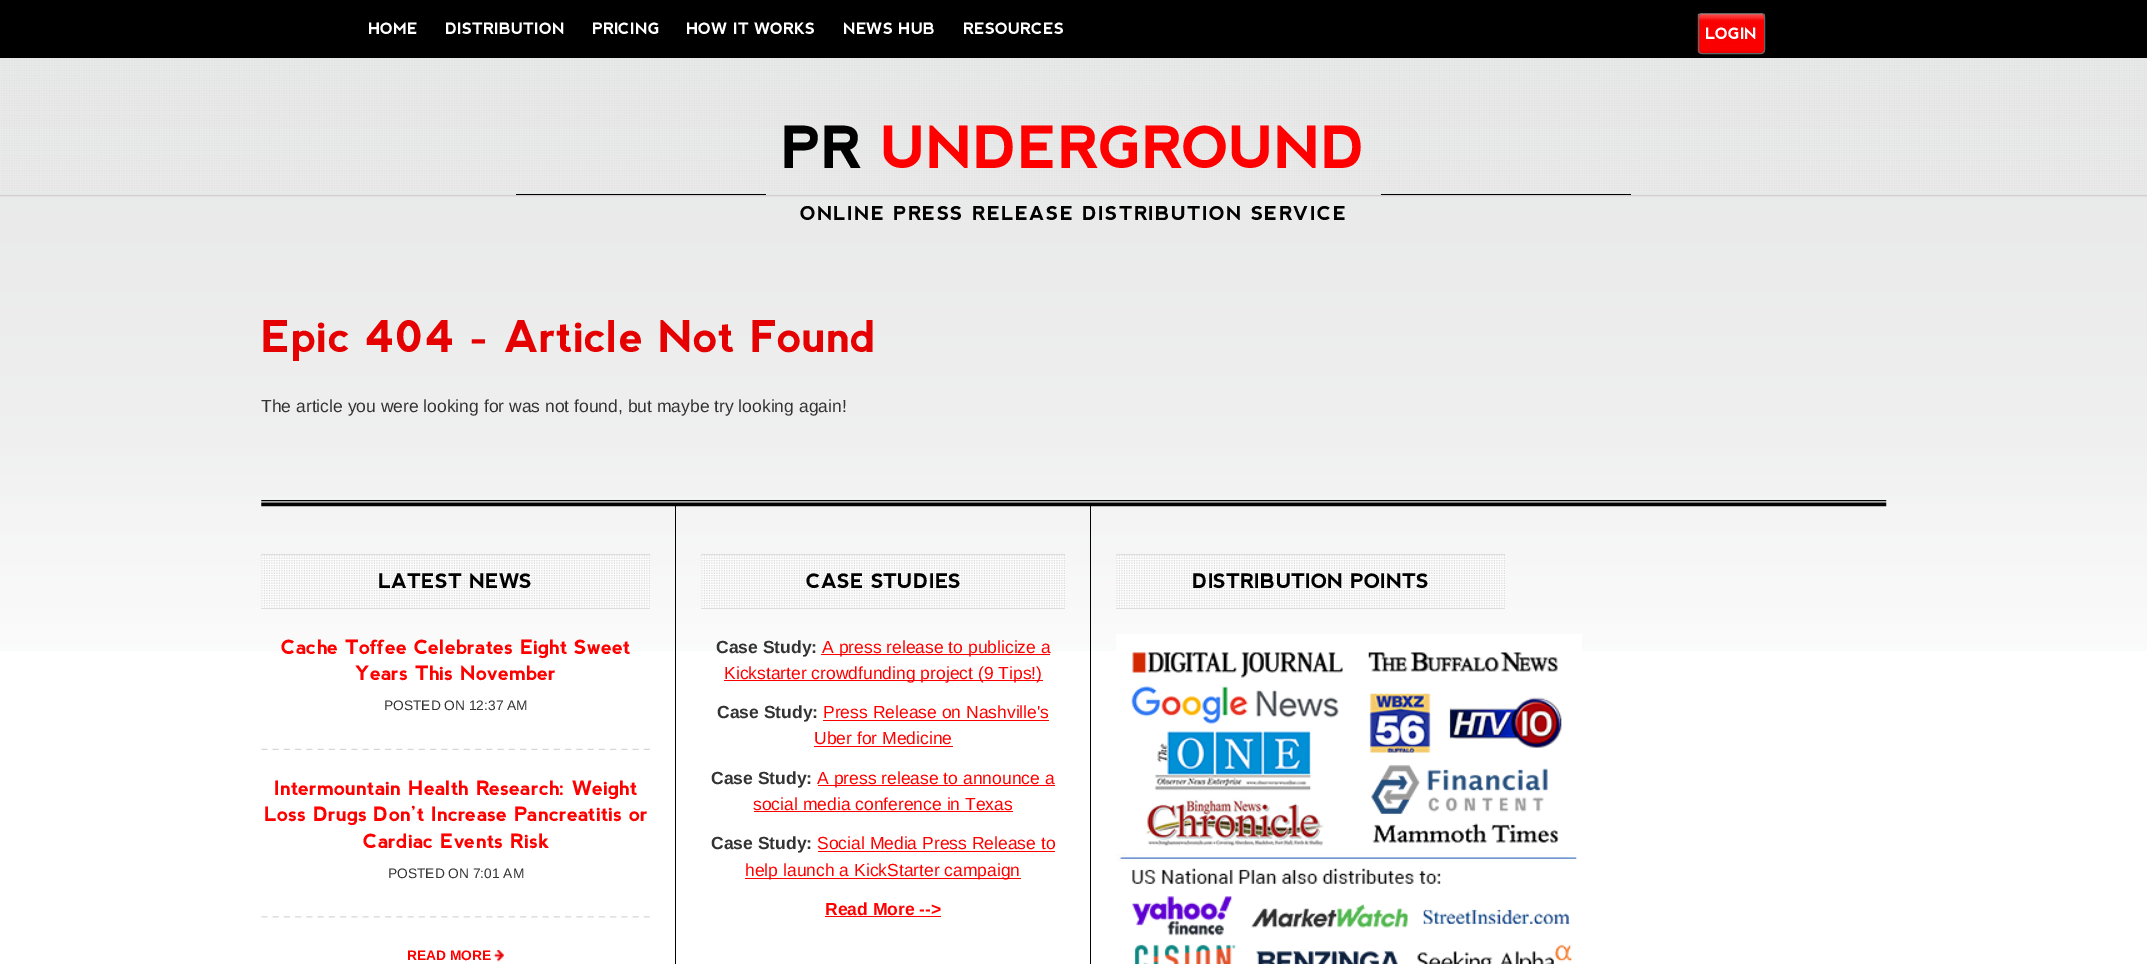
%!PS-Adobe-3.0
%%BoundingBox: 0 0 2147 964
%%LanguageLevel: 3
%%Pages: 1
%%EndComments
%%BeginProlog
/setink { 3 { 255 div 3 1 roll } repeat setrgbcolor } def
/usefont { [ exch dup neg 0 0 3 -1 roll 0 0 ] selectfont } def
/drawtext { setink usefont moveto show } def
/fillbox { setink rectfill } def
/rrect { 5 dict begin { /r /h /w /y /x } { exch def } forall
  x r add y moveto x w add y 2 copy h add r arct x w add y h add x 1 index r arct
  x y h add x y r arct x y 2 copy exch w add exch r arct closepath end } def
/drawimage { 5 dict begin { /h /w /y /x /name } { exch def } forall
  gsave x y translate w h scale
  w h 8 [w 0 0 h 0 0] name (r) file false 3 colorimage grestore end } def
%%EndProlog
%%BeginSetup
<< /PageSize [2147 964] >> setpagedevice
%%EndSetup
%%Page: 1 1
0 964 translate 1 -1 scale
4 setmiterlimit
0 0 2147 964 255 255 255 fillbox
(assets/img1.rgb) 0 58 2147 593 drawimage
0 0 2147 58 0 0 0 fillbox
(HOME) 368 34 /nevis-Bold 15.75 255 255 255 drawtext
(DISTRIBUTION) 445 34 /nevis-Bold 15.75 255 255 255 drawtext
(PRICING) 592 34 /nevis-Bold 15.75 255 255 255 drawtext
(HOW IT WORKS) 686 34 /nevis-Bold 15.75 255 255 255 drawtext
(NEWS HUB) 843 34 /nevis-Bold 15.75 255 255 255 drawtext
(RESOURCES) 963 34 /nevis-Bold 15.75 255 255 255 drawtext
(assets/img2.rgb) 1697 13 68 41 drawimage
102 102 102 setink
1698.5 13.5 66 40 3.5 rrect stroke
(LOGIN) 1705 39 /nevis-Bold 15.75 255 255 255 drawtext
516 194 250 1 0 0 0 fillbox
(PR) 781 168 /nevis-Bold 58 1 1 1 drawtext
(UNDERGROUND) 881 168 /nevis-Bold 58 255 0 0 drawtext
/nevis-Bold 19.25 usefont
1 1 1 setink
800 220 moveto 1.25 0 (ONLINE PRESS RELEASE DISTRIBUTION SERVICE) ashow
1381 194 250 1 0 0 0 fillbox
(Epic 404 - Article Not Found) 261 352 /nevis-Bold 43.75 229 1 1 drawtext
(The article you were looking for was not found, but maybe try looking again!) 261 412 /LiberationSans-Regular 17.5 51 51 51 drawtext
(assets/img3.rgb) 261 500 1626 7 drawimage
675 504 1 460 3 3 3 fillbox
(assets/img4.rgb) 261 553 389 55 drawimage
261 554 389 1 223 223 223 fillbox
261 608 389 1 223 223 223 fillbox
(LATEST NEWS) 378 588 /nevis-Bold 20 1 1 1 drawtext
(assets/img5.rgb) 261 748 389 2 drawimage
(Cache Toffee Celebrates Eight Sweet) 281 654 /nevis-Bold 19.7 255 0 0 drawtext
(Years This November) 355 680 /nevis-Bold 19.7 255 0 0 drawtext
(POSTED ON 12:37 AM) 384 710 /LiberationSans-Regular 13.75 51 51 51 drawtext
(assets/img6.rgb) 261 916 389 2 drawimage
(Intermountain Health Research: Weight) 274 795 /nevis-Bold 19.7 255 0 0 drawtext
(Loss Drugs Don’t Increase Pancreatitis or) 264 821 /nevis-Bold 19.7 255 0 0 drawtext
(Cardiac Events Risk) 363 848 /nevis-Bold 19.7 255 0 0 drawtext
(POSTED ON 7:01 AM) 388 878 /LiberationSans-Regular 13.75 51 51 51 drawtext
(READ MORE) 407 960 /LiberationSans-Bold 13.75 255 0 0 drawtext
(assets/img7.rgb) 493 950 11 12 drawimage
1090 504 1 460 3 3 3 fillbox
(assets/img8.rgb) 701 553 364 55 drawimage
701 554 364 1 223 223 223 fillbox
701 608 364 1 223 223 223 fillbox
(CASE STUDIES) 806 588 /nevis-Bold 20 1 1 1 drawtext
(Case Study:) 716 653 /LiberationSans-Bold 17.5 51 51 51 drawtext
821 654 229 1 255 0 0 fillbox
(A press release to publicize a) 822 653 /LiberationSans-Regular 17.5 255 0 0 drawtext
724 680 319 1 255 0 0 fillbox
(Kickstarter crowdfunding project \(9 Tips!\)) 724 679 /LiberationSans-Regular 17.5 255 0 0 drawtext
(Case Study:) 717 718 /LiberationSans-Bold 17.5 51 51 51 drawtext
(Press Release on Nashville's) 823 718 /LiberationSans-Regular 17.5 255 0 0 drawtext
823 720 226 1 255 0 0 fillbox
(Uber for Medicine) 814 744 /LiberationSans-Regular 17.5 255 0 0 drawtext
814 746 139 1 255 0 0 fillbox
(Case Study:) 711 784 /LiberationSans-Bold 17.5 51 51 51 drawtext
818 785 237 1 255 0 0 fillbox
(A press release to announce a) 817 784 /LiberationSans-Regular 17.5 255 0 0 drawtext
(social media conference in Texas) 753 810 /LiberationSans-Regular 17.5 255 0 0 drawtext
754 811 259 1 255 0 0 fillbox
(Case Study:) 711 849 /LiberationSans-Bold 17.5 51 51 51 drawtext
(Social Media Press Release to) 817 849 /LiberationSans-Regular 17.5 255 0 0 drawtext
818 851 237 1 255 0 0 fillbox
745 878 276 1 255 0 0 fillbox
(help launch a KickStarter campaign) 745 876 /LiberationSans-Regular 17.5 255 0 0 drawtext
(Read More -->) 825 915 /LiberationSans-Bold 17.5 255 0 0 drawtext
825 916 116 1 255 0 0 fillbox
(assets/img9.rgb) 1116 553 389 55 drawimage
1116 554 389 1 223 223 223 fillbox
1116 608 389 1 223 223 223 fillbox
(DISTRIBUTION POINTS) 1192 588 /nevis-Bold 20 1 1 1 drawtext
(assets/img10.rgb) 1116 634 466 330 drawimage
showpage
%%EOF
